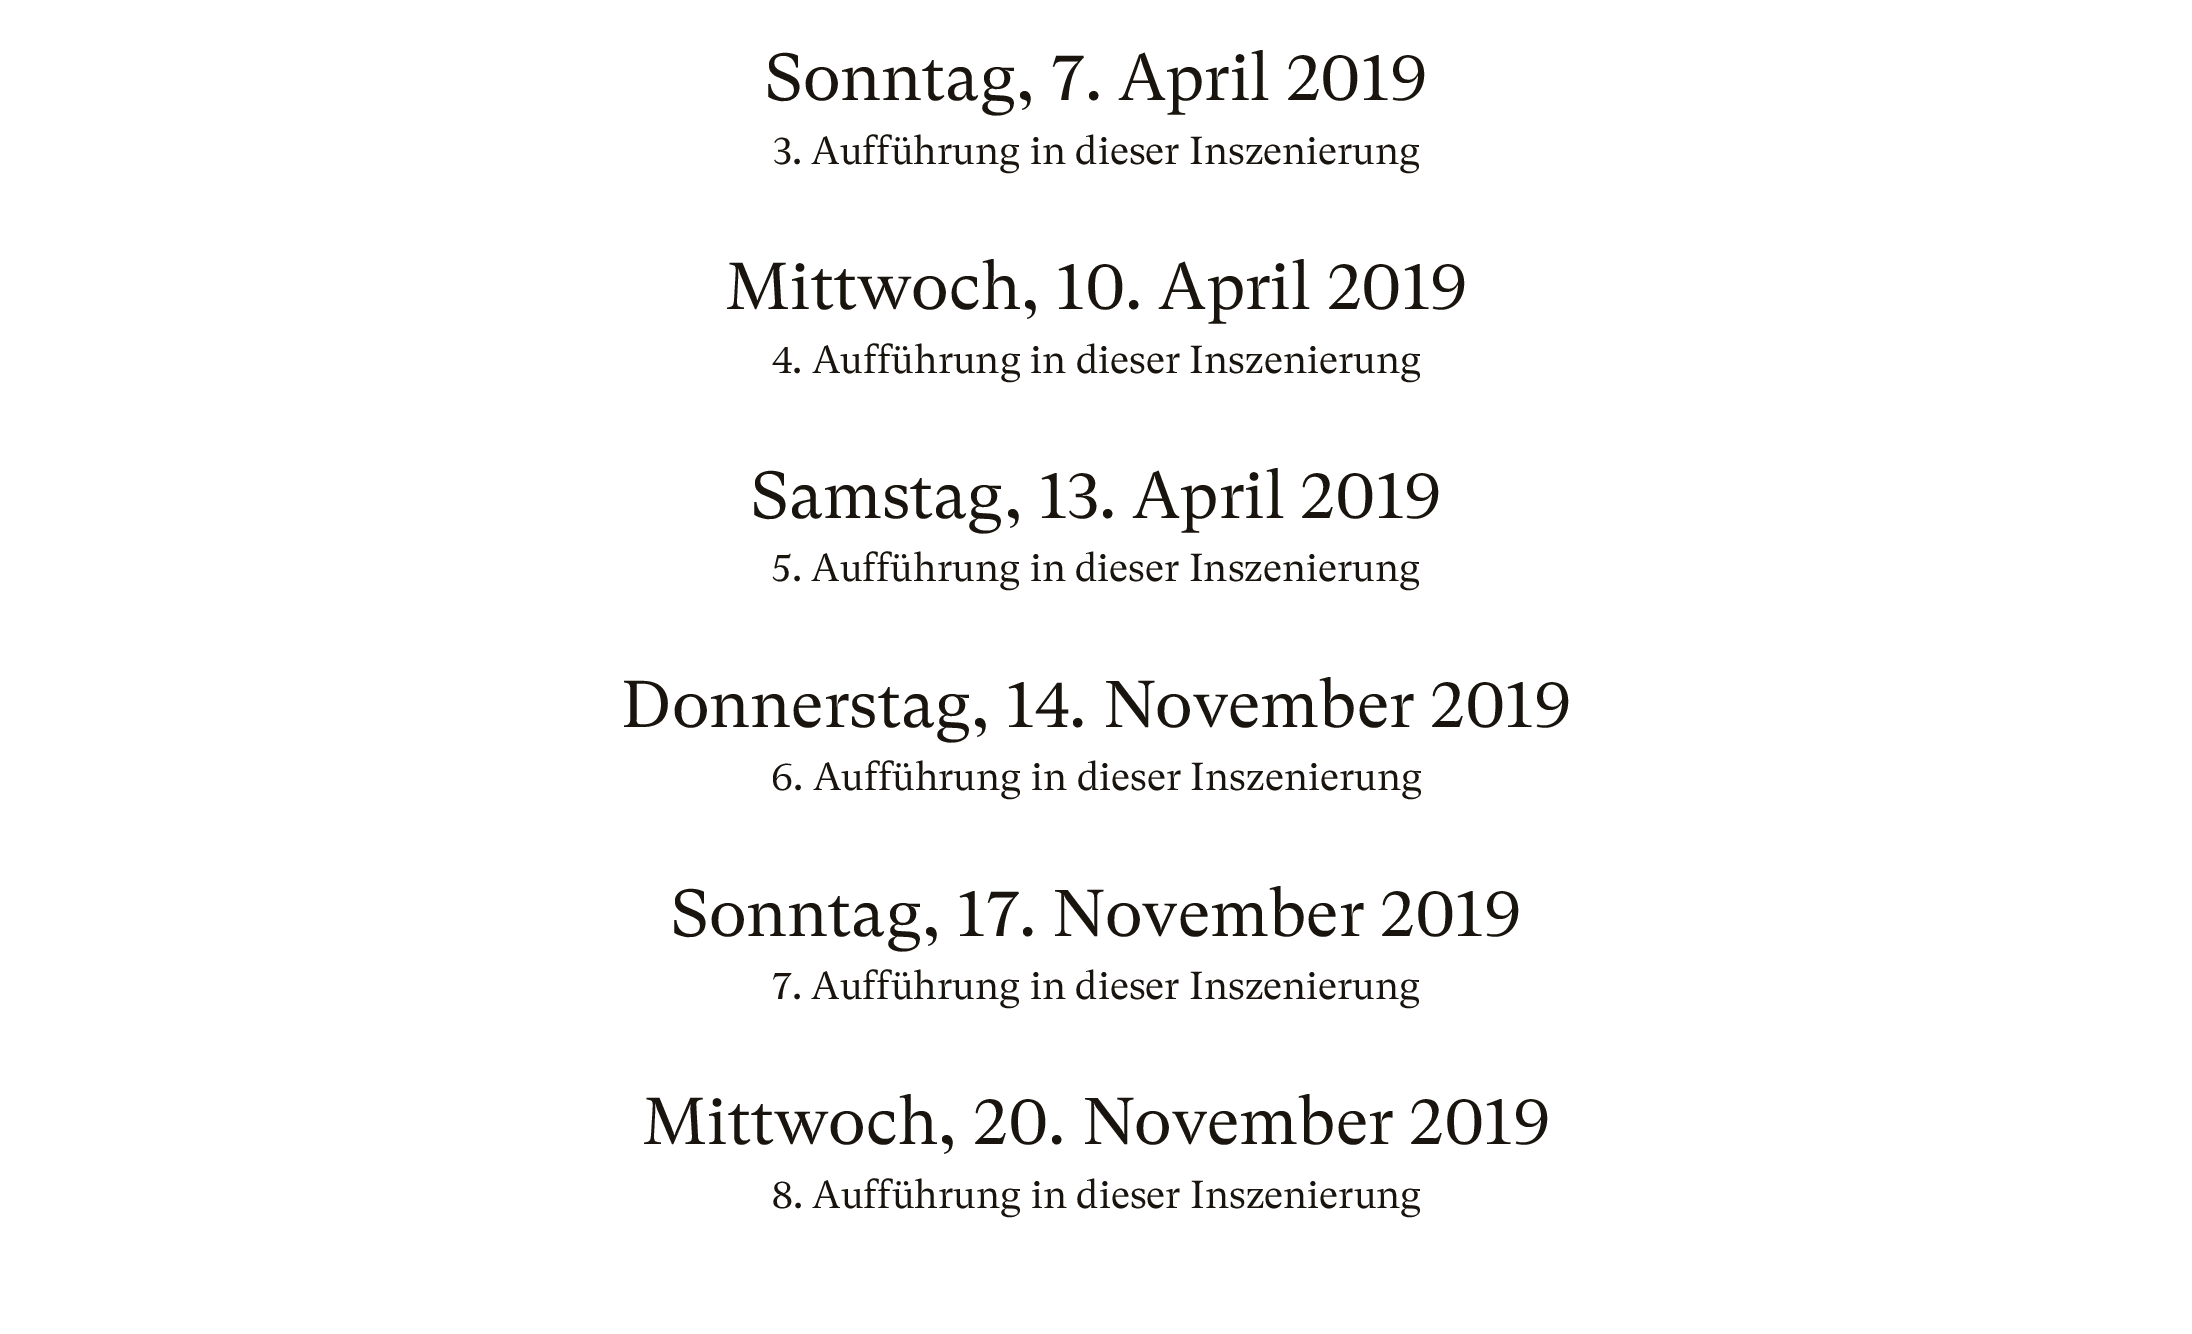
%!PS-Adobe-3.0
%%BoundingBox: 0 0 2192 1334
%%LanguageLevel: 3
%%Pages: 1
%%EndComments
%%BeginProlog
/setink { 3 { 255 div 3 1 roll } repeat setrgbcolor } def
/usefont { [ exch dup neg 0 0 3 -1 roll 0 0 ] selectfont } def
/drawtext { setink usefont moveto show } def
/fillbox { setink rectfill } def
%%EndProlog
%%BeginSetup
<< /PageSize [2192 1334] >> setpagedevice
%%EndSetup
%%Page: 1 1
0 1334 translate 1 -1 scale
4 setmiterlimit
0 0 2192 1334 255 255 255 fillbox
(Sonntag, 7. April 2019) 765 100 /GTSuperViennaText-Regular 66 25 20 14 drawtext
(3. Aufführung in dieser Inszenierung) 773 164 /GTSuperViennaText-Regular 38.9 25 20 14 drawtext
(Mittwoch, 10. April 2019) 725 309 /GTSuperViennaText-Regular 66 25 20 14 drawtext
(4. Aufführung in dieser Inszenierung) 772 373 /GTSuperViennaText-Regular 38.9 25 20 14 drawtext
(Samstag, 13. April 2019) 751 518 /GTSuperViennaText-Regular 66 25 20 14 drawtext
(5. Aufführung in dieser Inszenierung) 772 581 /GTSuperViennaText-Regular 38.9 25 20 14 drawtext
(Donnerstag, 14. November 2019) 621 727 /GTSuperViennaText-Regular 66 25 20 14 drawtext
(6. Aufführung in dieser Inszenierung) 771 790 /GTSuperViennaText-Regular 38.9 25 20 14 drawtext
(Sonntag, 17. November 2019) 671 936 /GTSuperViennaText-Regular 66 25 20 14 drawtext
(7. Aufführung in dieser Inszenierung) 772 999 /GTSuperViennaText-Regular 38.9 25 20 14 drawtext
(Mittwoch, 20. November 2019) 642 1144 /GTSuperViennaText-Regular 66 25 20 14 drawtext
(8. Aufführung in dieser Inszenierung) 772 1208 /GTSuperViennaText-Regular 38.9 25 20 14 drawtext
showpage
%%EOF
